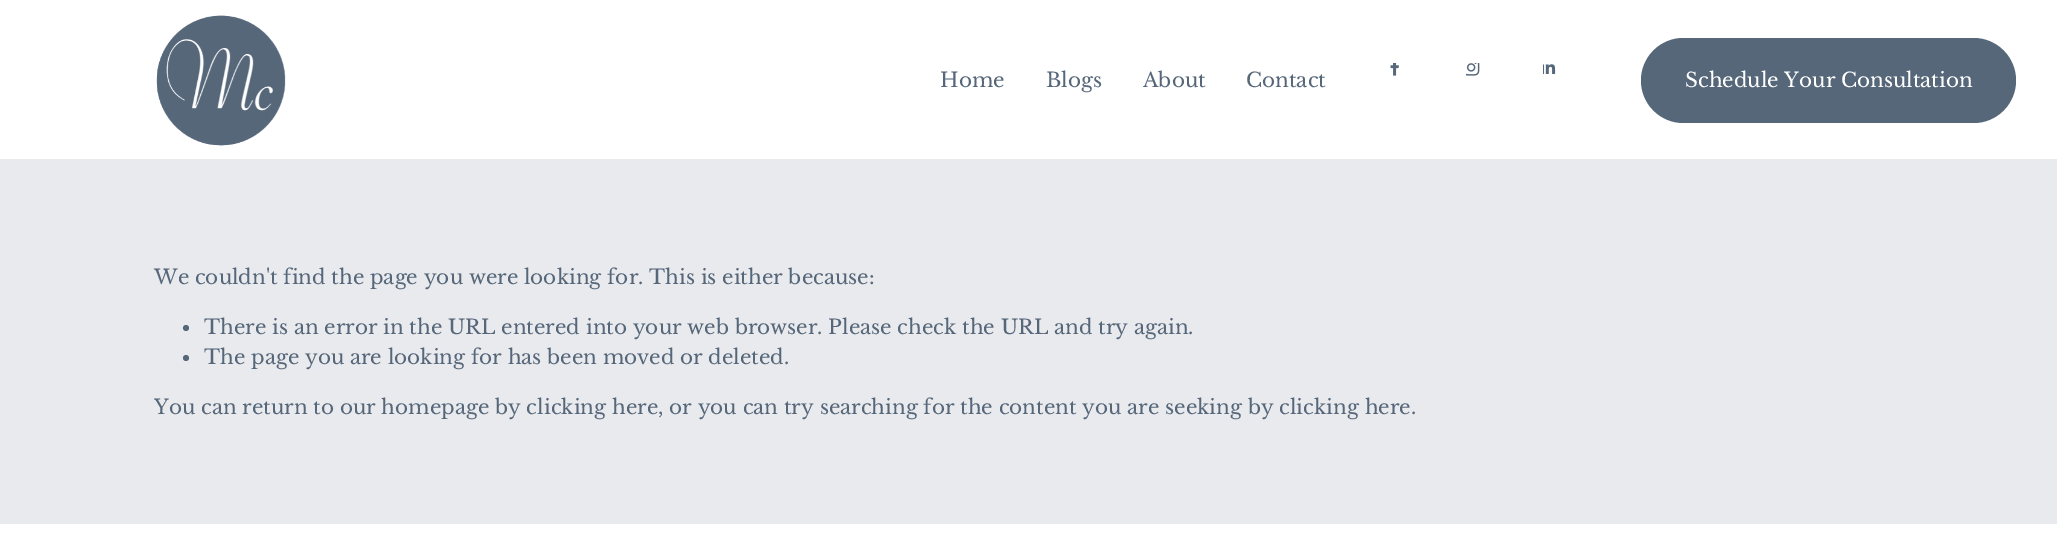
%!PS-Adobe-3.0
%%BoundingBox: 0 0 2057 551
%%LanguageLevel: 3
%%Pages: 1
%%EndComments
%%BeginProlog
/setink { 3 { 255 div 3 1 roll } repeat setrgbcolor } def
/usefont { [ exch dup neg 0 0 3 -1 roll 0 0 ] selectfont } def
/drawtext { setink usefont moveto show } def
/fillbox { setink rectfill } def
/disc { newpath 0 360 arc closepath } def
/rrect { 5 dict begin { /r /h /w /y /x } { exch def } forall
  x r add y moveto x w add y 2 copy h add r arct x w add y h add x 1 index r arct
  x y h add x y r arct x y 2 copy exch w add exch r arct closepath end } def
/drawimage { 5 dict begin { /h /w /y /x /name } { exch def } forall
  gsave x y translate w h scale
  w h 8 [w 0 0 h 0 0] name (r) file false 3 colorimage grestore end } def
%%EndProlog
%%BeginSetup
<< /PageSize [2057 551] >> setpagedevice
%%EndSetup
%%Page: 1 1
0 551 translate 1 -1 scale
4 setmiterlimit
0 0 2057 551 233 234 237 fillbox
0 0 2057 159 255 255 255 fillbox
(assets/img1.rgb) 156 15 130 131 drawimage
(Home) 940 87 /LibreBaskerville-Regular 20 86 103 122 drawtext
(Blogs) 1046 87 /LibreBaskerville-Regular 20 86 103 122 drawtext
(About) 1143 87 /LibreBaskerville-Regular 20 86 103 122 drawtext
(Contact) 1246 87 /LibreBaskerville-Regular 20 86 103 122 drawtext
(assets/img2.rgb) 1390 63 9 13 drawimage
(assets/img3.rgb) 1466 63 14 13 drawimage
(assets/img4.rgb) 1543 64 13 10 drawimage
1641 38 375 85 42.5 rrect fill
(Schedule Your Consultation) 1685 87 /LibreBaskerville-Regular 20 255 255 255 drawtext
(We couldn't find the page you were looking for. This is either because:) 154 284 /LibreBaskerville-Regular 20 86 103 122 drawtext
186 328 3 disc fill
(There is an error in the URL entered into your web browser. Please check the URL and try again.) 204 334 /LibreBaskerville-Regular 20 86 103 122 drawtext
186 358 3 disc fill
(The page you are looking for has been moved or deleted.) 204 364 /LibreBaskerville-Regular 20 86 103 122 drawtext
(You can return to our homepage by clicking here, or you can try searching for the content you are seeking by clicking here.) 154 414 /LibreBaskerville-Regular 20 86 103 122 drawtext
0 524 2057 27 255 255 255 fillbox
showpage
%%EOF
